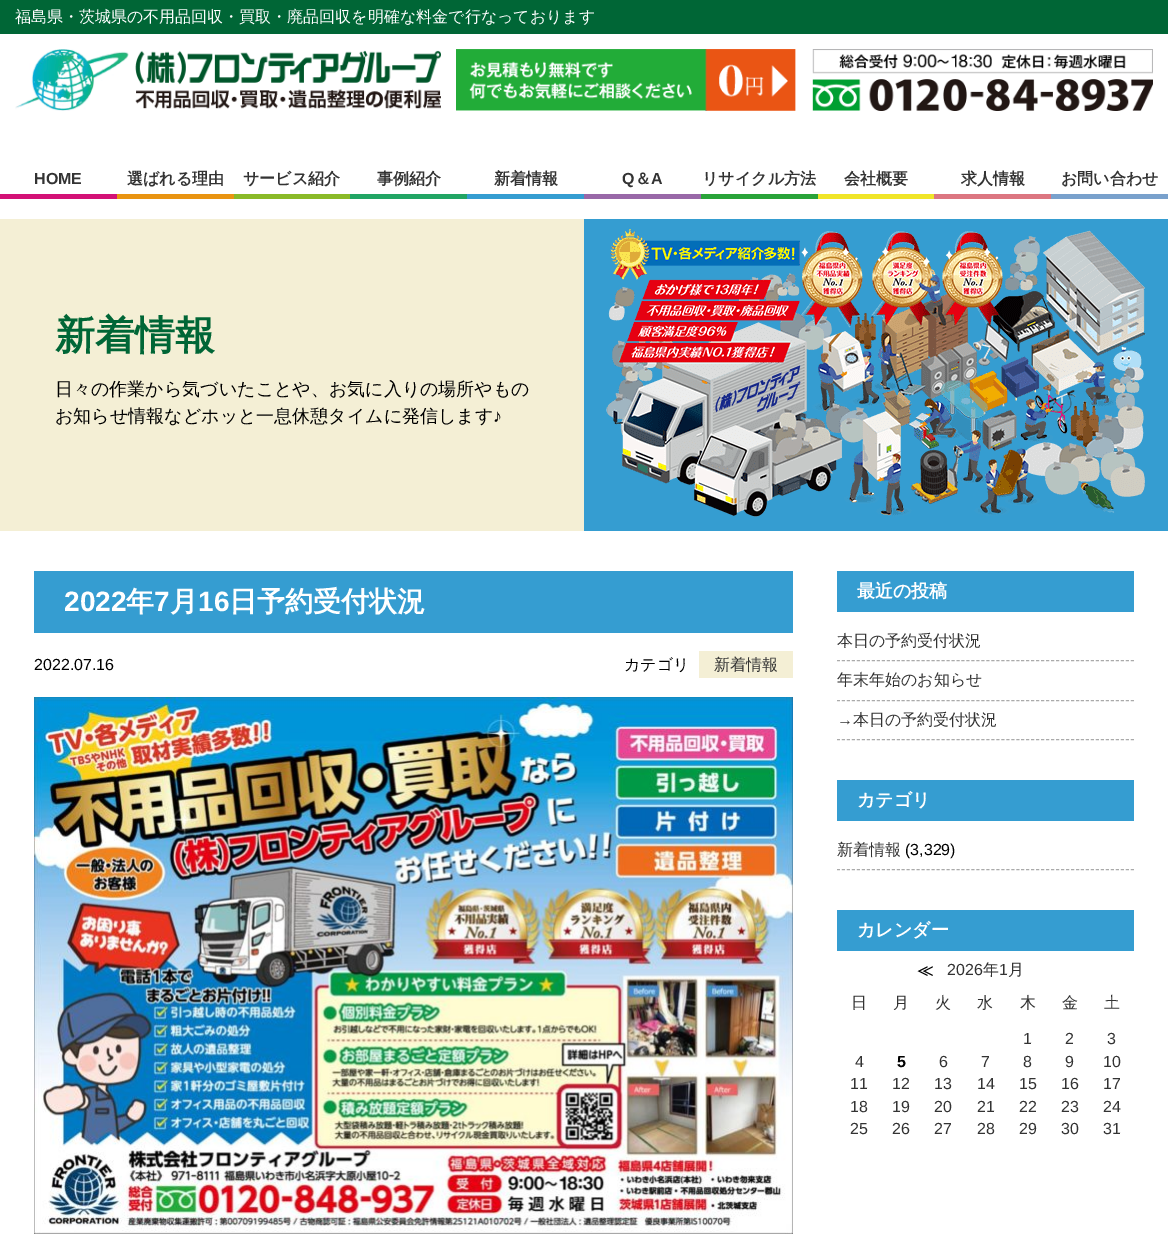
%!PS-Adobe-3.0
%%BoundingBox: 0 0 1168 1256
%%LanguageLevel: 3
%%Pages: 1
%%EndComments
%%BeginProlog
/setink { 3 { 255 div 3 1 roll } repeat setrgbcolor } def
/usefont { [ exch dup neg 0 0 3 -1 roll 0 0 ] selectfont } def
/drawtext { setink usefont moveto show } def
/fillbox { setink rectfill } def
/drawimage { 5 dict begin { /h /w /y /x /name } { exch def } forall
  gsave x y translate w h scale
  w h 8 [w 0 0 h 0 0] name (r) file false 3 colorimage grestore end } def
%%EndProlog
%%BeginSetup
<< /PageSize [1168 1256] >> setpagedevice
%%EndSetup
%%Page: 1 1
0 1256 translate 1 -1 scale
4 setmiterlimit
0 0 1168 1256 255 255 255 fillbox
0 0 1168 34 0 102 54 fillbox
(福島県・茨城県の不用品回収・買取・廃品回収を明確な料金で行なっております) 15 22 /WenQuanYiZenHei-Medium 16 255 255 255 drawtext
(assets/img1.rgb) 15 49 426 62 drawimage
(assets/img2.rgb) 456 49 697 62 drawimage
0 194 117 5 211 17 118 fillbox
(HOME) 34 184 /LiberationSans-Bold 16 51 51 51 drawtext
117 194 117 5 233 148 17 fillbox
(選ばれる理由) 127 184 /WenQuanYiZenHei-Bold 16 51 51 51 drawtext
234 194 116 5 138 186 40 fillbox
(サービス紹介) 243 184 /WenQuanYiZenHei-Bold 16 51 51 51 drawtext
350 194 117 5 33 165 100 fillbox
(事例紹介) 377 184 /WenQuanYiZenHei-Bold 16 51 51 51 drawtext
467 194 117 5 53 157 209 fillbox
(新着情報) 494 184 /WenQuanYiZenHei-Bold 16 51 51 51 drawtext
584 194 117 5 153 104 168 fillbox
(Q) 622 184 /LiberationSans-Bold 16 51 51 51 drawtext
(＆) 635 184 /WenQuanYiZenHei-Bold 16 51 51 51 drawtext
(A) 651 184 /LiberationSans-Bold 16 51 51 51 drawtext
701 194 117 5 41 163 57 fillbox
(リサイクル方法) 702 184 /WenQuanYiZenHei-Bold 16 51 51 51 drawtext
818 194 116 5 240 229 40 fillbox
(会社概要) 844 184 /WenQuanYiZenHei-Bold 16 51 51 51 drawtext
934 194 117 5 220 118 129 fillbox
(求人情報) 961 184 /WenQuanYiZenHei-Bold 16 51 51 51 drawtext
1051 194 117 5 121 161 204 fillbox
(お問い合わせ) 1061 184 /WenQuanYiZenHei-Bold 16 51 51 51 drawtext
0 219 584 312 244 239 213 fillbox
(新着情報) 55 349 /WenQuanYiZenHei-Bold 40 0 102 54 drawtext
(日々の作業から気づいたことや、お気に入りの場所やもの) 55 395 /WenQuanYiZenHei-Medium 18 0 0 0 drawtext
(お知らせ情報などホッと一息休憩タイムに発信します) 55 422 /WenQuanYiZenHei-Medium 18 0 0 0 drawtext
(♪) 493 422 /LiberationSans-Regular 18 0 0 0 drawtext
584 219 584 312 53 157 209 fillbox
(assets/img3.rgb) 606 229 540 288 drawimage
34 571 759 62 53 157 209 fillbox
(2022) 64 611 /LiberationSans-Bold 28 255 255 255 drawtext
(年) 126 611 /WenQuanYiZenHei-Bold 28 255 255 255 drawtext
(7) 154 611 /LiberationSans-Bold 28 255 255 255 drawtext
(月) 170 611 /WenQuanYiZenHei-Bold 28 255 255 255 drawtext
(16) 198 611 /LiberationSans-Bold 28 255 255 255 drawtext
(日予約受付状況) 229 611 /WenQuanYiZenHei-Bold 28 255 255 255 drawtext
(2022.07.16) 34 670 /LiberationSans-Regular 16 0 0 0 drawtext
(カテゴリ) 624 670 /WenQuanYiZenHei-Medium 16 0 0 0 drawtext
699 651 94 27 244 239 213 fillbox
(新着情報) 714 670 /WenQuanYiZenHei-Medium 16 51 51 51 drawtext
(assets/img4.rgb) 34 697 759 537 drawimage
837 571 297 41 53 157 209 fillbox
(最近の投稿) 857 597 /WenQuanYiZenHei-Bold 18 255 255 255 drawtext
170 170 170 setink
[3 1.98] 0 setdash
837 660.5 moveto 1134 660.5 lineto stroke
(本日の予約受付状況) 837 646 /WenQuanYiZenHei-Medium 16 51 51 51 drawtext
170 170 170 setink
837 700.5 moveto 1134 700.5 lineto stroke
(年末年始のお知らせ) 837 685 /WenQuanYiZenHei-Medium 16 51 51 51 drawtext
170 170 170 setink
837 739.5 moveto 1134 739.5 lineto stroke
(→) 837 725 /LiberationSans-Regular 16 51 51 51 drawtext
(本日の予約受付状況) 853 725 /WenQuanYiZenHei-Medium 16 51 51 51 drawtext
837 780 297 41 53 157 209 fillbox
(カテゴリ) 857 806 /WenQuanYiZenHei-Bold 18 255 255 255 drawtext
170 170 170 setink
837 869.5 moveto 1134 869.5 lineto stroke
(新着情報) 837 855 /WenQuanYiZenHei-Medium 16 51 51 51 drawtext
(\(3,329\)) 905 855 /LiberationSans-Regular 16 0 0 0 drawtext
837 910 297 41 53 157 209 fillbox
(カレンダー) 857 936 /WenQuanYiZenHei-Bold 18 255 255 255 drawtext
(≪) 917 976 /WenQuanYiZenHei-Bold 16 0 0 0 drawtext
(2026) 947 975 /LiberationSans-Regular 16 51 51 51 drawtext
(年) 983 975 /WenQuanYiZenHei-Medium 16 51 51 51 drawtext
(1) 999 975 /LiberationSans-Regular 16 51 51 51 drawtext
(月) 1008 975 /WenQuanYiZenHei-Medium 16 51 51 51 drawtext
(日) 851 1008 /WenQuanYiZenHei-Medium 16 51 51 51 drawtext
(月) 893 1008 /WenQuanYiZenHei-Medium 16 51 51 51 drawtext
(火) 935 1008 /WenQuanYiZenHei-Medium 16 51 51 51 drawtext
(水) 977 1008 /WenQuanYiZenHei-Medium 16 51 51 51 drawtext
(木) 1020 1008 /WenQuanYiZenHei-Medium 16 51 51 51 drawtext
(金) 1062 1008 /WenQuanYiZenHei-Medium 16 51 51 51 drawtext
(土) 1104 1008 /WenQuanYiZenHei-Medium 16 51 51 51 drawtext
(1) 1023 1044 /LiberationSans-Regular 16 51 51 51 drawtext
(2) 1065 1044 /LiberationSans-Regular 16 51 51 51 drawtext
(3) 1107 1044 /LiberationSans-Regular 16 51 51 51 drawtext
(4) 855 1067 /LiberationSans-Regular 16 51 51 51 drawtext
(5) 897 1067 /LiberationSans-Bold 16 0 0 0 drawtext
(6) 939 1067 /LiberationSans-Regular 16 51 51 51 drawtext
(7) 981 1067 /LiberationSans-Regular 16 51 51 51 drawtext
(8) 1023 1067 /LiberationSans-Regular 16 51 51 51 drawtext
(9) 1065 1067 /LiberationSans-Regular 16 51 51 51 drawtext
(10) 1103 1067 /LiberationSans-Regular 16 51 51 51 drawtext
(11) 850 1089 /LiberationSans-Regular 16 51 51 51 drawtext
(12) 892 1089 /LiberationSans-Regular 16 51 51 51 drawtext
(13) 934 1089 /LiberationSans-Regular 16 51 51 51 drawtext
(14) 977 1089 /LiberationSans-Regular 16 51 51 51 drawtext
(15) 1019 1089 /LiberationSans-Regular 16 51 51 51 drawtext
(16) 1061 1089 /LiberationSans-Regular 16 51 51 51 drawtext
(17) 1103 1089 /LiberationSans-Regular 16 51 51 51 drawtext
(18) 850 1112 /LiberationSans-Regular 16 51 51 51 drawtext
(19) 892 1112 /LiberationSans-Regular 16 51 51 51 drawtext
(20) 934 1112 /LiberationSans-Regular 16 51 51 51 drawtext
(21) 977 1112 /LiberationSans-Regular 16 51 51 51 drawtext
(22) 1019 1112 /LiberationSans-Regular 16 51 51 51 drawtext
(23) 1061 1112 /LiberationSans-Regular 16 51 51 51 drawtext
(24) 1103 1112 /LiberationSans-Regular 16 51 51 51 drawtext
(25) 850 1134 /LiberationSans-Regular 16 51 51 51 drawtext
(26) 892 1134 /LiberationSans-Regular 16 51 51 51 drawtext
(27) 934 1134 /LiberationSans-Regular 16 51 51 51 drawtext
(28) 977 1134 /LiberationSans-Regular 16 51 51 51 drawtext
(29) 1019 1134 /LiberationSans-Regular 16 51 51 51 drawtext
(30) 1061 1134 /LiberationSans-Regular 16 51 51 51 drawtext
(31) 1103 1134 /LiberationSans-Regular 16 51 51 51 drawtext
showpage
%%EOF
